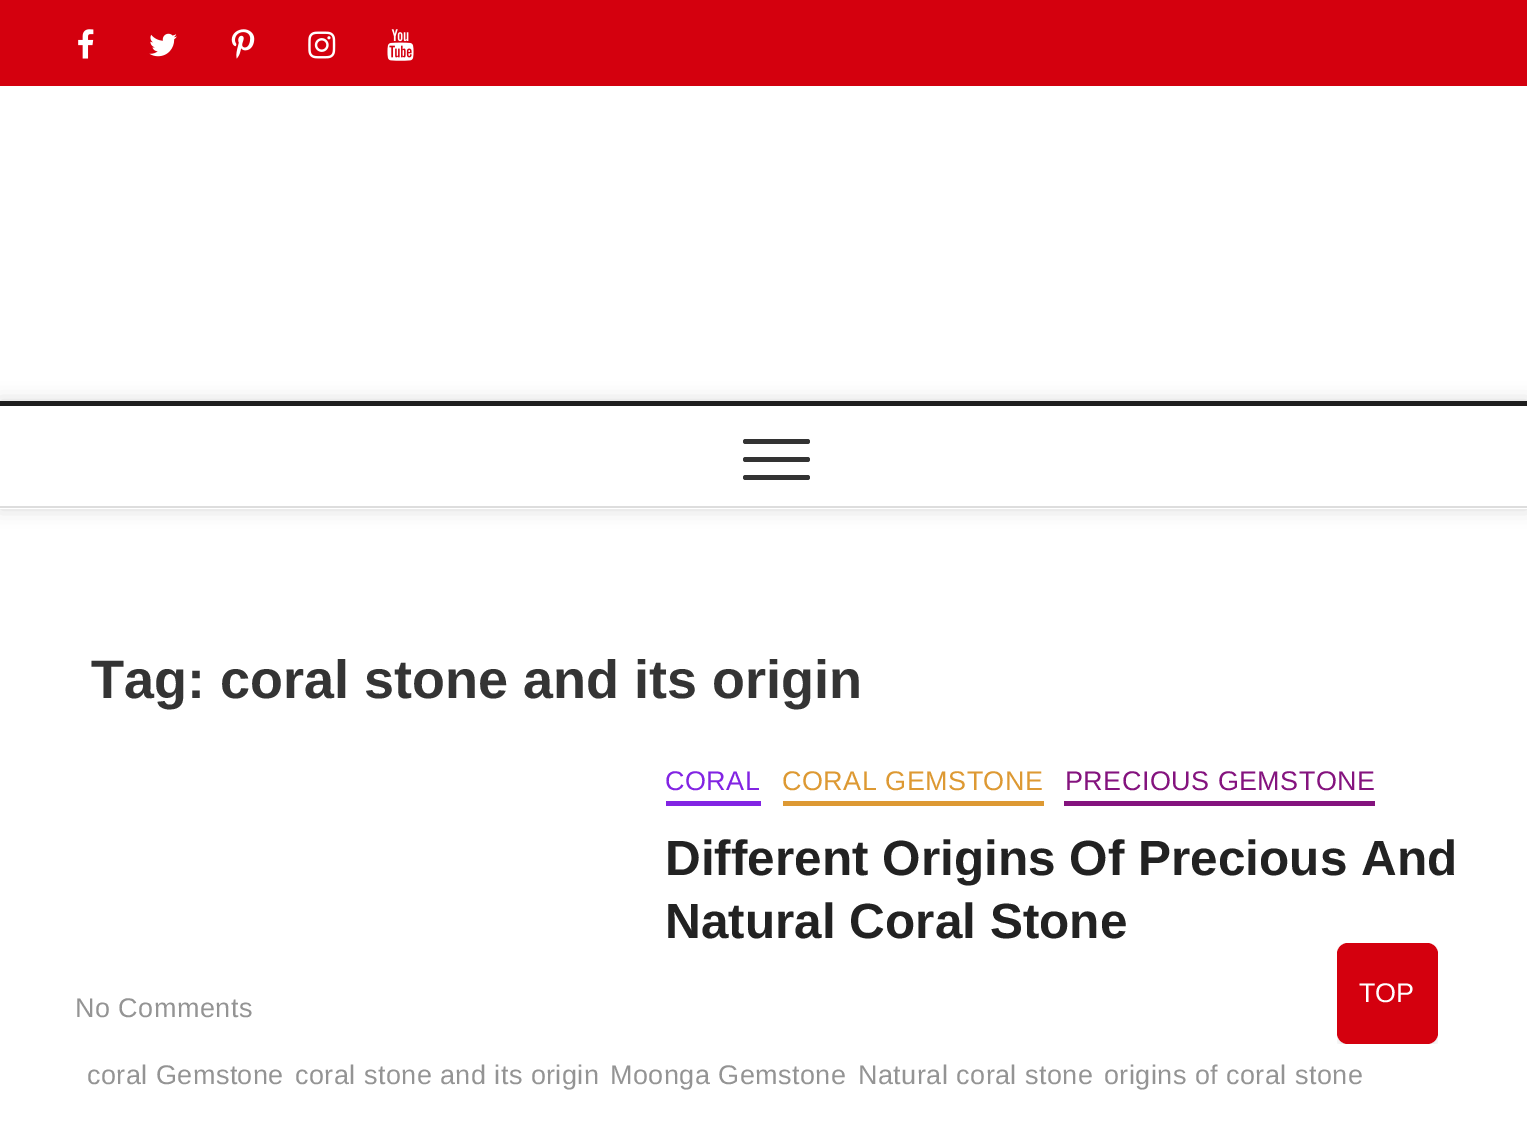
%!PS-Adobe-3.0
%%BoundingBox: 0 0 1527 1133
%%LanguageLevel: 3
%%Pages: 1
%%EndComments
%%BeginProlog
/setink { 3 { 255 div 3 1 roll } repeat setrgbcolor } def
/usefont { [ exch dup neg 0 0 3 -1 roll 0 0 ] selectfont } def
/drawtext { setink usefont moveto show } def
/fillbox { setink rectfill } def
/setalpha { dup .setfillconstantalpha .setstrokeconstantalpha } def
/rrect { 5 dict begin { /r /h /w /y /x } { exch def } forall
  x r add y moveto x w add y 2 copy h add r arct x w add y h add x 1 index r arct
  x y h add x y r arct x y 2 copy exch w add exch r arct closepath end } def
/softshadow { 12 dict begin { /a /b /q /h /w /y /x } { exch def } forall gsave /was 0 def
  9 -2 -9 { dup b mul 4 div /e exch def 1 sub .425 mul 2.718 exch exp 1 add a .99 .min exch div /now exch def
    1 1 now sub 1 was sub div sub setalpha /was now def
    w h .min e 2 mul add 0 gt { x e sub y e sub w e 2 mul add h e 2 mul add
      q e add b .6 mul add w h .min 2 div e add .min 0 .max rrect fill } if } for grestore end } def
/drawimage { 5 dict begin { /h /w /y /x /name } { exch def } forall
  gsave x y translate w h scale
  w h 8 [w 0 0 h 0 0] name (r) file false 3 colorimage grestore end } def
%%EndProlog
%%BeginSetup
<< /PageSize [1527 1133] /PageUsesTransparency true >> setpagedevice
%%EndSetup
%%Page: 1 1
0 .pushpdf14devicefilter
0 1133 translate 1 -1 scale
4 setmiterlimit
0 0 1527 1133 255 255 255 fillbox
0 0 1527 86 212 0 14 fillbox
(assets/img1.rgb) 78 29 16 30 drawimage
(assets/img2.rgb) 149 33 28 24 drawimage
(assets/img3.rgb) 231 29 24 30 drawimage
(assets/img4.rgb) 308 31 28 28 drawimage
(assets/img5.rgb) 387 29 27 32 drawimage
0 0 0 setink
0 401 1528 108 0 9 0.15 softshadow
0 406 1527 103 255 255 255 fillbox
0 401 1527 5 30 30 30 fillbox
0 506 1527 2 221 221 221 fillbox
51 51 51 setink
743 457 67 5 2.5 rrect fill
743 439 67 5 2.5 rrect fill
743 475 67 5 2.5 rrect fill
(Tag: coral stone and its origin) 91 698 /LiberationSans-Bold 54 52 52 52 drawtext
/LiberationSans-Regular 27 usefont
130 36 227 setink
665 790 moveto 0.45 0 (CORAL) ashow
666 801 95 5 130 36 227 fillbox
221 153 51 setink
782 790 moveto 0.45 0 (CORAL GEMSTONE) ashow
783 801 261 5 221 153 51 fillbox
132 19 126 setink
1065 790 moveto 0.45 0 (PRECIOUS GEMSTONE) ashow
1064 801 311 5 132 19 126 fillbox
(Different Origins Of Precious And) 665 875 /LiberationSans-Bold 49.5 34 34 34 drawtext
(Natural Coral Stone) 665 938 /LiberationSans-Bold 49.5 34 34 34 drawtext
/LiberationSans-Regular 27 usefont
148 148 148 setink
75 1017 moveto 0.45 0 (No Comments) ashow
87 1084 moveto 0.45 0 (coral Gemstone) ashow
295 1084 moveto 0.45 0 (coral stone and its origin) ashow
610 1084 moveto 0.45 0 (Moonga Gemstone) ashow
858 1084 moveto 0.45 0 (Natural coral stone) ashow
1104 1084 moveto 0.45 0 (origins of coral stone) ashow
gsave
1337 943 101 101 rectclip
0 0 0 setink
1337 947 101 102 11 3.5 0.08 softshadow
grestore
212 0 14 setink
1337 943 101 101 11 rrect fill
(TOP) 1359 1002 /LiberationSans-Regular 27 255 255 255 drawtext
.poppdf14devicefilter showpage
%%EOF
